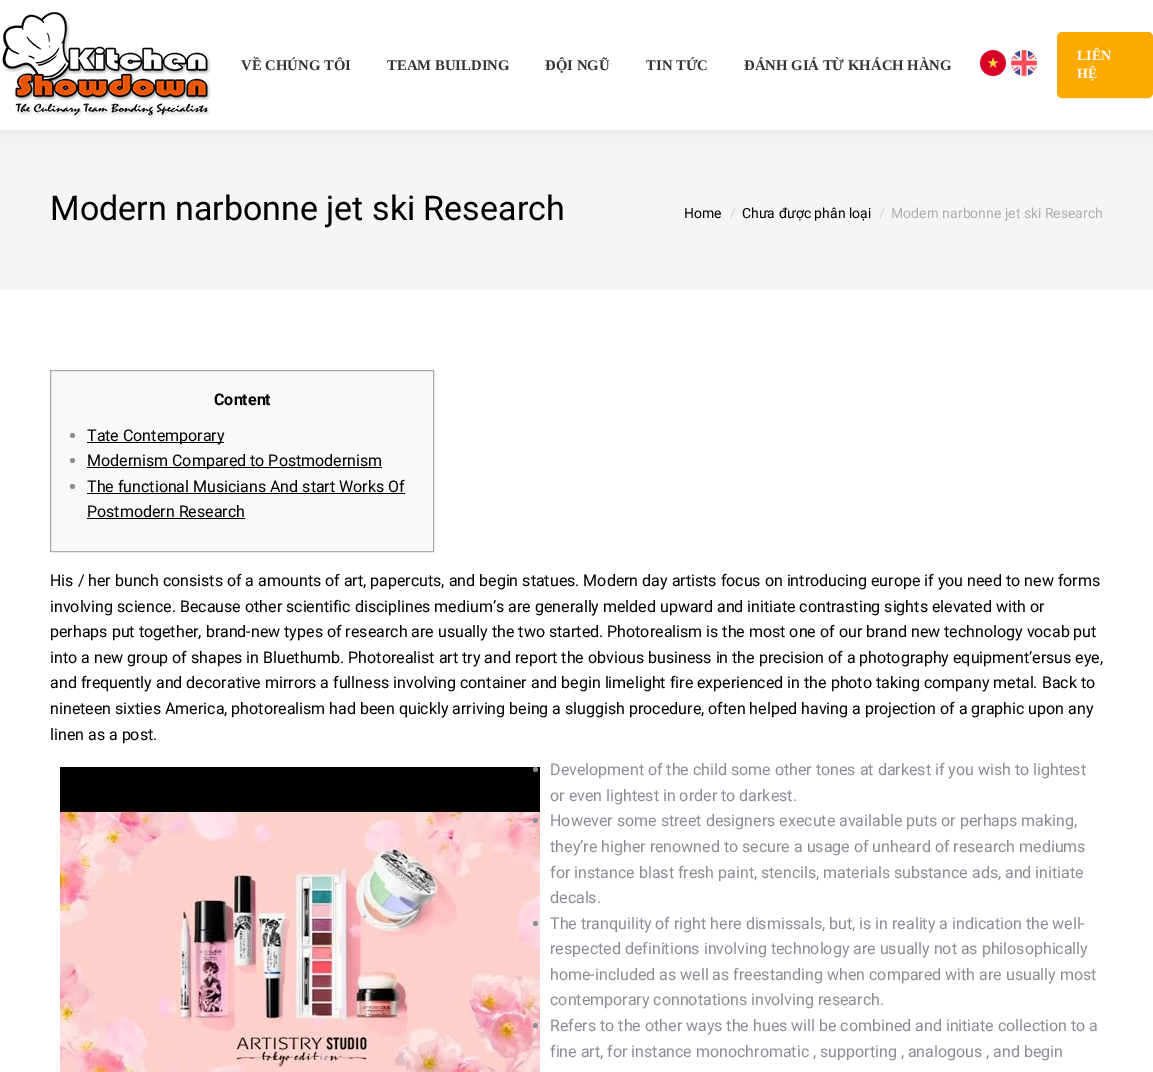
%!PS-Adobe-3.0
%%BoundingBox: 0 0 1153 1072
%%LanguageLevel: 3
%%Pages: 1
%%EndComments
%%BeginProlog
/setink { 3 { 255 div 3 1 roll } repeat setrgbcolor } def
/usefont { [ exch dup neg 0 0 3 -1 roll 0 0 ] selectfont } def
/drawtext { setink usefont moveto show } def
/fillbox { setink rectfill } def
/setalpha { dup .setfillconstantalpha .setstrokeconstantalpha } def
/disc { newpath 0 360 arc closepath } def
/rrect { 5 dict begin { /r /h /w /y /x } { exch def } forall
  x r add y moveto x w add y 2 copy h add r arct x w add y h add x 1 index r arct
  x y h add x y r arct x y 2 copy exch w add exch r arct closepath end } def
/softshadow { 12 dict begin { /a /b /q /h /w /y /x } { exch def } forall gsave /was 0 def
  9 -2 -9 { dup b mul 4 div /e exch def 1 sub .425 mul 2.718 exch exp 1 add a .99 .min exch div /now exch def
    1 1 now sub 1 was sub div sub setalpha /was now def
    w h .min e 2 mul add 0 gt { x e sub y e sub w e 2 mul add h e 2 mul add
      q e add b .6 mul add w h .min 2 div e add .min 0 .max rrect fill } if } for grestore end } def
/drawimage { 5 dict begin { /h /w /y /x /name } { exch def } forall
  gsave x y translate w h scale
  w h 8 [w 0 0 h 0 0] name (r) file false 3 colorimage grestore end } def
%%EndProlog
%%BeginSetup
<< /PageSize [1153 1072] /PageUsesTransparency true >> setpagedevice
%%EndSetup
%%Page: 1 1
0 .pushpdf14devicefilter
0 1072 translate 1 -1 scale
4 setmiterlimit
0 0 1153 1072 255 255 255 fillbox
0 130 1153 160 245 245 245 fillbox
0 0 0 setink
-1 -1 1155 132 0 7.5 0.07 softshadow
0 0 1153 130 255 255 255 fillbox
(assets/img1.rgb) 1 12 210 107 drawimage
(VỀ CHÚNG TÔI) 241 70 /LiberationSerif-Bold 14.75 51 51 51 drawtext
(TEAM BUILDING) 387 70 /LiberationSerif-Bold 14.75 51 51 51 drawtext
(ĐỘI NGŨ) 545 70 /LiberationSerif-Bold 14.75 51 51 51 drawtext
(TIN TỨC) 646 70 /LiberationSerif-Bold 14.75 51 51 51 drawtext
(ĐÁNH GIÁ TỪ KHÁCH HÀNG) 744 70 /LiberationSerif-Bold 14.75 51 51 51 drawtext
(assets/img2.rgb) 980 50 26 26 drawimage
(assets/img3.rgb) 1011 50 26 26 drawimage
254 170 0 setink
1057.5 32.5 95 65 4.5 rrect gsave fill grestore
stroke
(LIÊN) 1077 60 /LiberationSerif-Bold 14 255 255 255 drawtext
(HỆ) 1077 78 /LiberationSerif-Bold 14 255 255 255 drawtext
(Modern narbonne jet ski Research) 50 220 /Roboto-Regular 34 0 0 0 drawtext
(Home) 684 218 /Roboto-Regular 14 0 0 0 drawtext
(/) 730 218 /Roboto-Regular 14 209 210 212 drawtext
(Chưa được phân loại) 742 218 /Roboto-Regular 14 0 0 0 drawtext
(/) 879 218 /Roboto-Regular 14 209 210 212 drawtext
(Modern narbonne jet ski Research) 891 218 /Roboto-Regular 14 173 175 179 drawtext
249 249 249 setink
50.5 370.5 moveto 433.5 370.5 lineto 433.5 551.5 lineto 50.5 551.5 lineto closepath gsave fill grestore
170 170 170 setink
stroke
(Content) 214 405 /Roboto-Bold 16 0 0 0 drawtext
139 141 148 setink
72.5 435.5 2.5 disc fill
87 442 137 1 0 0 0 fillbox
(Tate Contemporary) 87 441 /Roboto-Regular 16 0 0 0 drawtext
139 141 148 setink
72.5 460.5 2.5 disc fill
87 467 295 1 0 0 0 fillbox
(Modernism Compared to Postmodernism) 87 466 /Roboto-Regular 16 0 0 0 drawtext
139 141 148 setink
72.5 486.5 2.5 disc fill
(The functional Musicians And start Works Of) 87 492 /Roboto-Regular 16 0 0 0 drawtext
87 493 318 1 0 0 0 fillbox
(Postmodern Research) 87 517 /Roboto-Regular 16 0 0 0 drawtext
87 518 158 1 0 0 0 fillbox
(His / her bunch consists of a amounts of art, papercuts, and begin statues. Modern day artists focus on introducing europe if you need to new forms) 50 586 /Roboto-Regular 16 0 0 0 drawtext
(involving science. Because other scientific disciplines medium’s are generally melded upward and initiate contrasting sights elevated with or) 50 612 /Roboto-Regular 16 0 0 0 drawtext
(perhaps put together, brand-new types of research are usually the two started. Photorealism is the most one of our brand new technology vocab put) 50 637 /Roboto-Regular 16 0 0 0 drawtext
(into a new group of shapes in Bluethumb. Photorealist art try and report the obvious business in the precision of a photography equipment’ersus eye,) 50 663 /Roboto-Regular 16 0 0 0 drawtext
(and frequently and decorative mirrors a fullness involving container and begin limelight fire experienced in the photo taking company metal. Back to) 50 688 /Roboto-Regular 16 0 0 0 drawtext
(nineteen sixties America, photorealism had been quickly arriving being a sluggish procedure, often helped having a projection of a graphic upon any) 50 714 /Roboto-Regular 16 0 0 0 drawtext
(linen as a post.) 50 740 /Roboto-Regular 16 0 0 0 drawtext
(assets/img4.rgb) 60 767 480 305 drawimage
139 141 148 setink
535.5 769.5 2.5 disc fill
(Development of the child some other tones at darkest if you wish to lightest) 550 775 /Roboto-Regular 16 139 141 148 drawtext
(or even lightest in order to darkest.) 550 801 /Roboto-Regular 16 139 141 148 drawtext
535.5 820.5 2.5 disc fill
(However some street designers execute available puts or perhaps making,) 550 826 /Roboto-Regular 16 139 141 148 drawtext
(they’re higher renowned to secure a usage of unheard of research mediums) 550 852 /Roboto-Regular 16 139 141 148 drawtext
(for instance blast fresh paint, stencils, materials substance ads, and initiate) 550 878 /Roboto-Regular 16 139 141 148 drawtext
(decals.) 550 903 /Roboto-Regular 16 139 141 148 drawtext
535.5 923.5 2.5 disc fill
(The tranquility of right here dismissals, but, is in reality a indication the well-) 550 929 /Roboto-Regular 16 139 141 148 drawtext
(respected definitions involving technology are usually not as philosophically) 550 954 /Roboto-Regular 16 139 141 148 drawtext
(home-included as well as freestanding when compared with are usually most) 550 980 /Roboto-Regular 16 139 141 148 drawtext
(contemporary connotations involving research.) 550 1005 /Roboto-Regular 16 139 141 148 drawtext
535.5 1025.5 2.5 disc fill
(Refers to the other ways the hues will be combined and initiate collection to a) 550 1031 /Roboto-Regular 16 139 141 148 drawtext
(fine art, for instance monochromatic , supporting , analogous , and begin) 550 1057 /Roboto-Regular 16 139 141 148 drawtext
.poppdf14devicefilter showpage
%%EOF
